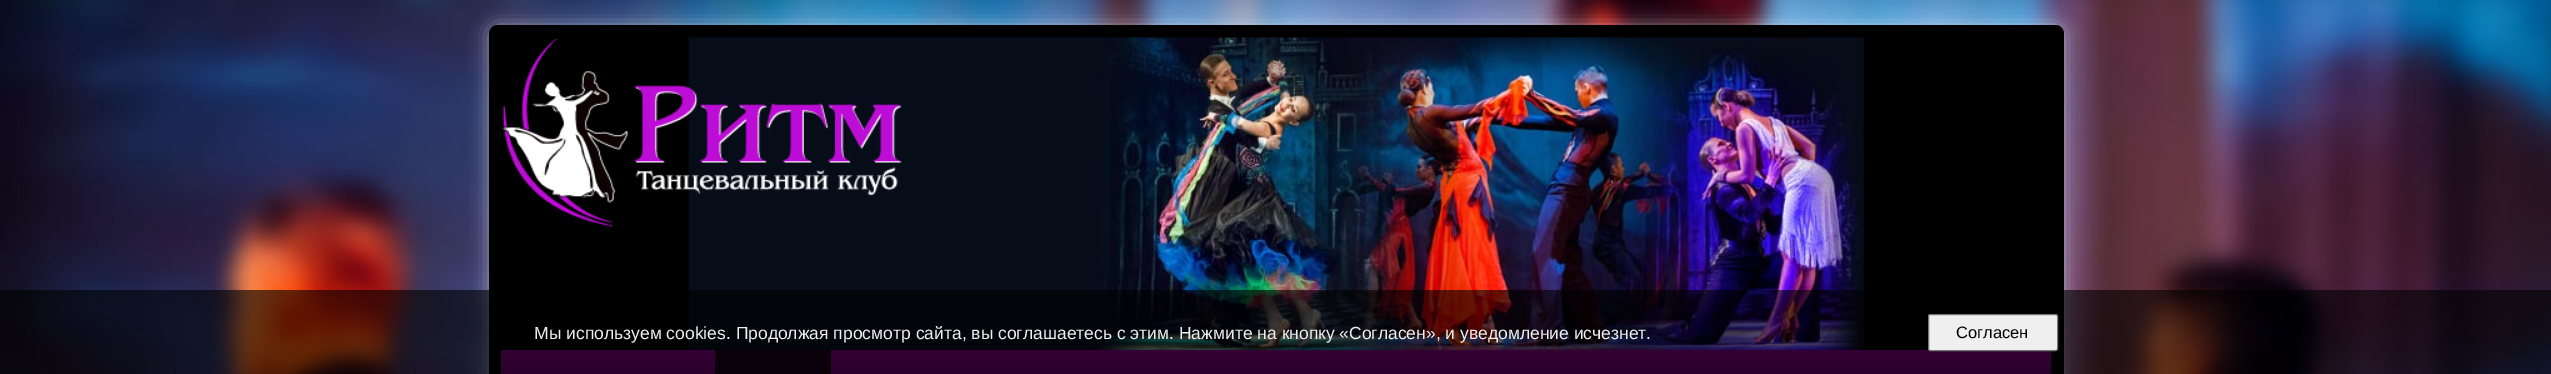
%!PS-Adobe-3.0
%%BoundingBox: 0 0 2551 374
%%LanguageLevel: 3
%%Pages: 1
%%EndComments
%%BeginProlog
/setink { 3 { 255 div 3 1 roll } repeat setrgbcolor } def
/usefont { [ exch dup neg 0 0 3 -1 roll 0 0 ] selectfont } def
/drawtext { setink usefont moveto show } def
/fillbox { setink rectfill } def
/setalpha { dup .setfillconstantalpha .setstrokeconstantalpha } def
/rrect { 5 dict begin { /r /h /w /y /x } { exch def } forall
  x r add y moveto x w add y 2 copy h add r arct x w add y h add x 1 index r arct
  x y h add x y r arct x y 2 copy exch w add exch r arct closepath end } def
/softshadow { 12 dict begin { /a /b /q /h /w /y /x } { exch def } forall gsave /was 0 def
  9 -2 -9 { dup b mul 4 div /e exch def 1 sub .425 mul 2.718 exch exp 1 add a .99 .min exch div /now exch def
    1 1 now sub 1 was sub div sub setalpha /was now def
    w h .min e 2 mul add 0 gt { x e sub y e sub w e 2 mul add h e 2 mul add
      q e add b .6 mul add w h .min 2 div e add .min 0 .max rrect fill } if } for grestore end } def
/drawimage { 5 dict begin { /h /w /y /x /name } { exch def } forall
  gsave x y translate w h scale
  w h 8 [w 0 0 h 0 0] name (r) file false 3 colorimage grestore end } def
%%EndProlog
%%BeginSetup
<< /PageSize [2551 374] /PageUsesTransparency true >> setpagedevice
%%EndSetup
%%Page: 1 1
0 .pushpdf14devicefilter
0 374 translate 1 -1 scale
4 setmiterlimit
0 0 2551 374 255 255 255 fillbox
(assets/img1.rgb) 0 0 2551 374 drawimage
489 25 1575 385 9 9 0.5 softshadow
0 0 0 setink
489 25 1575 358 9 rrect fill
(assets/img2.rgb) 688 37 1176 313 drawimage
(assets/img3.rgb) 502 38 400 189 drawimage
gsave 501 350 moveto 2051 350 lineto 2051 374 lineto 501 374 lineto closepath clip newpath
<< /ShadingType 2 /ColorSpace /DeviceRGB /Coords [1276 350 1276 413] /Extend [true true] /Function << /FunctionType 2 /Domain [0 1] /C0 [0.502 0 0.502] /C1 [0.302 0 0.302] /N 1 >> >> shfill grestore
715 350 116 24 26 0 26 fillbox
0.6 setalpha
0 290 2551 84 0 0 0 fillbox
1 setalpha
(Мы используем cookies. Продолжая просмотр сайта, вы соглашаетесь с этим. Нажмите на кнопку «Согласен», и уведомление исчезнет.) 534 339 /LiberationSans-Regular 17.5 239 239 239 drawtext
1928.5 314.5 129 36 2 rrect gsave fill grestore
118 118 118 setink
stroke
(Согласен) 1956 338 /LiberationSans-Regular 16.5 0 0 0 drawtext
.poppdf14devicefilter showpage
%%EOF
